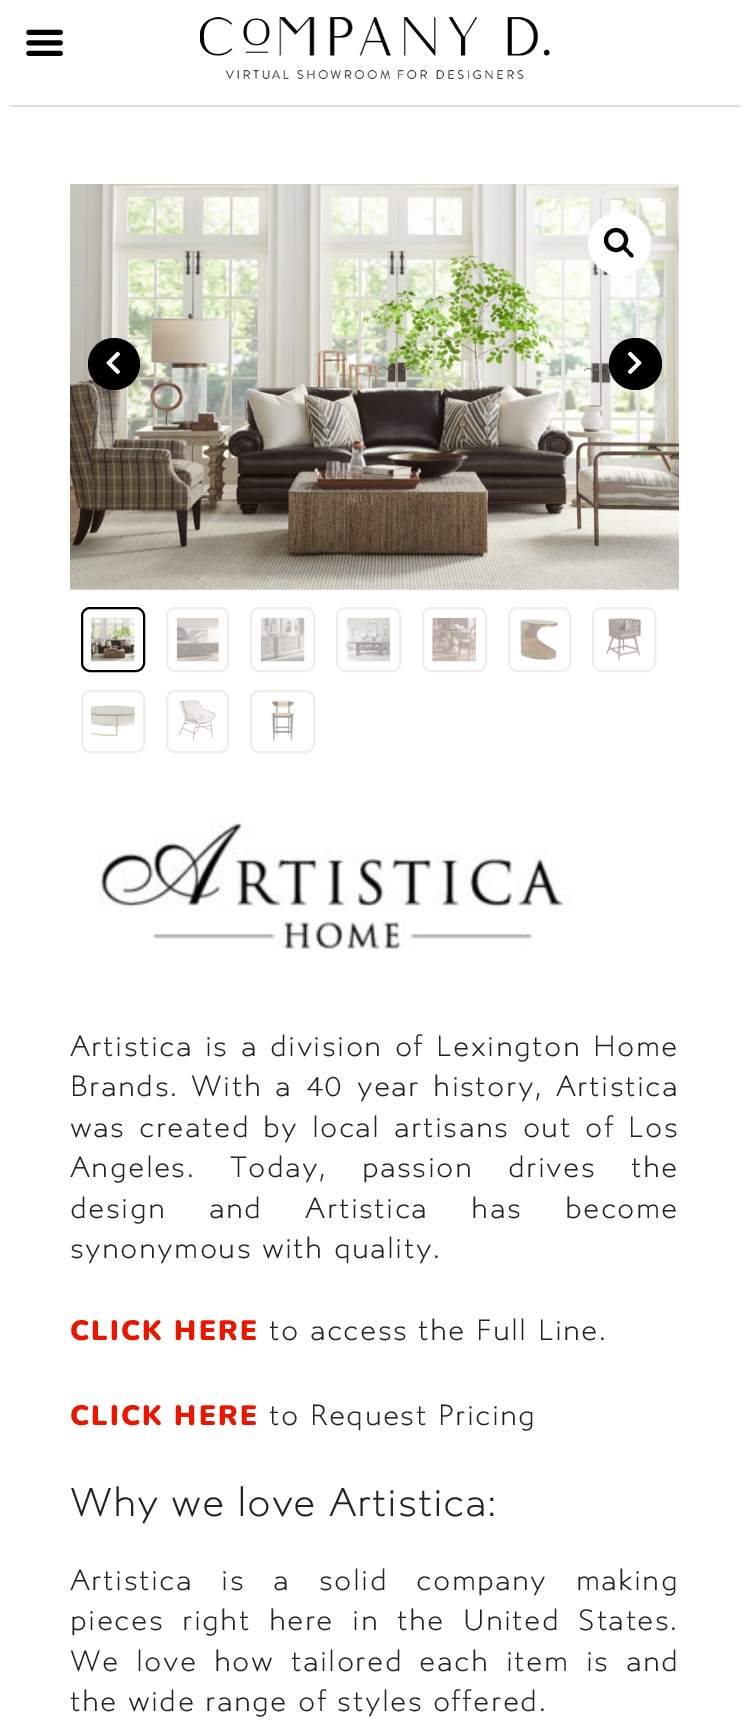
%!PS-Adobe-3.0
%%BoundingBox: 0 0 748 1732
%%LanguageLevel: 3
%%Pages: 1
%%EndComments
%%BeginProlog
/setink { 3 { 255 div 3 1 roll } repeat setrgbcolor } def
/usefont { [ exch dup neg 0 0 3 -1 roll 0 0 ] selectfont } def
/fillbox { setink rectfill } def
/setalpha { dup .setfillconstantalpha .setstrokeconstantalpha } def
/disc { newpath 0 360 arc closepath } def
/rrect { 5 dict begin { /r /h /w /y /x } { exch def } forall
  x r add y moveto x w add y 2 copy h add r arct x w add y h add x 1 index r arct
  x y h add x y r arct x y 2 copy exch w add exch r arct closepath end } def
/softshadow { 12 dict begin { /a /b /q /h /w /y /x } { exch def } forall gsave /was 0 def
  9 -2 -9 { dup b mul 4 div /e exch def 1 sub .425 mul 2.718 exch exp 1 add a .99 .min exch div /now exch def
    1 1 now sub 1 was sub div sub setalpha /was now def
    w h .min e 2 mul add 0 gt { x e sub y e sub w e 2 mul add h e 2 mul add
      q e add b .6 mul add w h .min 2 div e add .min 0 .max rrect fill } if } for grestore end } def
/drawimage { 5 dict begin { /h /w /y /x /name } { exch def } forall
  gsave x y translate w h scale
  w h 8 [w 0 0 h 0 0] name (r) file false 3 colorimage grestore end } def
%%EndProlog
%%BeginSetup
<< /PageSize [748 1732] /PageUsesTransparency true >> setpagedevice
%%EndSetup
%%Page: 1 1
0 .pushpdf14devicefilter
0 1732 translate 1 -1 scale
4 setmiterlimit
0 0 748 1732 255 255 255 fillbox
gsave
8 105 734 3 rectclip
0 0 0 setink
11 37 728 66 0 2.5 1 softshadow
grestore
(assets/img1.rgb) 200 17 350 62 drawimage
(assets/img2.rgb) 26 29 37 27 drawimage
(assets/img3.rgb) 70 184 609 406 drawimage
619.5 243.5 31.5 disc fill
0 0 0 setink
4 setlinewidth
616 240 10 disc stroke
623.5 247 moveto 625.5 245 628.5 249.5 629.5 251 curveto 630.5 252 635 255 633 257 curveto 631 259 628 254.5 627 253 curveto 626 252 621.5 249 623.5 247 curveto closepath fill
114 364 26 disc fill
(assets/img4.rgb) 106 351 14 24 drawimage
609 338 53 52 26 rrect fill
(assets/img5.rgb) 627 351 15 24 drawimage
2 setlinewidth
82 608 62 63 8 rrect stroke
(assets/img6.rgb) 91 617 44 45 drawimage
238 238 238 setink
167 608 61 63 8 rrect stroke
(assets/img7.rgb) 176 618 43 44 drawimage
251 608 63 63 8 rrect stroke
(assets/img8.rgb) 260 617 45 45 drawimage
337 608 63 63 8 rrect stroke
(assets/img9.rgb) 346 618 45 44 drawimage
423 608 63 63 8 rrect stroke
(assets/img10.rgb) 432 617 44 45 drawimage
509 608 61 63 8 rrect stroke
(assets/img11.rgb) 520 619 38 41 drawimage
593 608 62 63 8 rrect stroke
(assets/img12.rgb) 606 618 36 43 drawimage
82 691 62 61 8 rrect stroke
(assets/img13.rgb) 91 705 44 34 drawimage
167 691 61 61 8 rrect stroke
(assets/img14.rgb) 178 700 38 42 drawimage
251 691 63 61 8 rrect stroke
(assets/img15.rgb) 271 700 24 42 drawimage
(assets/img16.rgb) 98 822 474 127 drawimage
/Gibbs-Bold 28 usefont
34 34 34 setink
70 1056 moveto 2.25 0 32 2.15 0 (Artistica is a division of Lexington Home) awidthshow
70 1096 moveto 3.5 0 32 2.15 0 (Brands. With a 40 year history, Artistica) awidthshow
70 1137 moveto 3.5 0 32 2.15 0 (was created by local artisans out of Los) awidthshow
70 1177 moveto 25 0 32 2.15 0 (Angeles. Today, passion drives the) awidthshow
70 1218 moveto 33 0 32 2.15 0 (design and Artistica has become) awidthshow
70 1258 moveto 2.15 0 (synonymous with quality.) ashow
/Nunito-Black 28 usefont
232 23 0 setink
70 1340 moveto 2.15 0 (CLICK HERE) ashow
/Gibbs-Bold 28 usefont
34 34 34 setink
269 1340 moveto 2.15 0 (to access the Full Line.) ashow
/Nunito-Black 28 usefont
232 23 0 setink
70 1425 moveto 2.15 0 (CLICK HERE) ashow
/Gibbs-Bold 28 usefont
34 34 34 setink
269 1425 moveto 2.15 0 (to Request Pricing) ashow
/Gibbs-Bold 38.5 usefont
70 1516 moveto 1.75 0 (Why we love Artistica:) ashow
/Gibbs-Bold 28 usefont
70 1590 moveto 18.5 0 32 2.15 0 (Artistica is a solid company making) awidthshow
70 1630 moveto 8.25 0 32 2.15 0 (pieces right here in the United States.) awidthshow
70 1671 moveto 6.75 0 32 2.15 0 (We love how tailored each item is and) awidthshow
70 1711 moveto 2.15 0 (the wide range of styles offered.) ashow
.poppdf14devicefilter showpage
%%EOF
